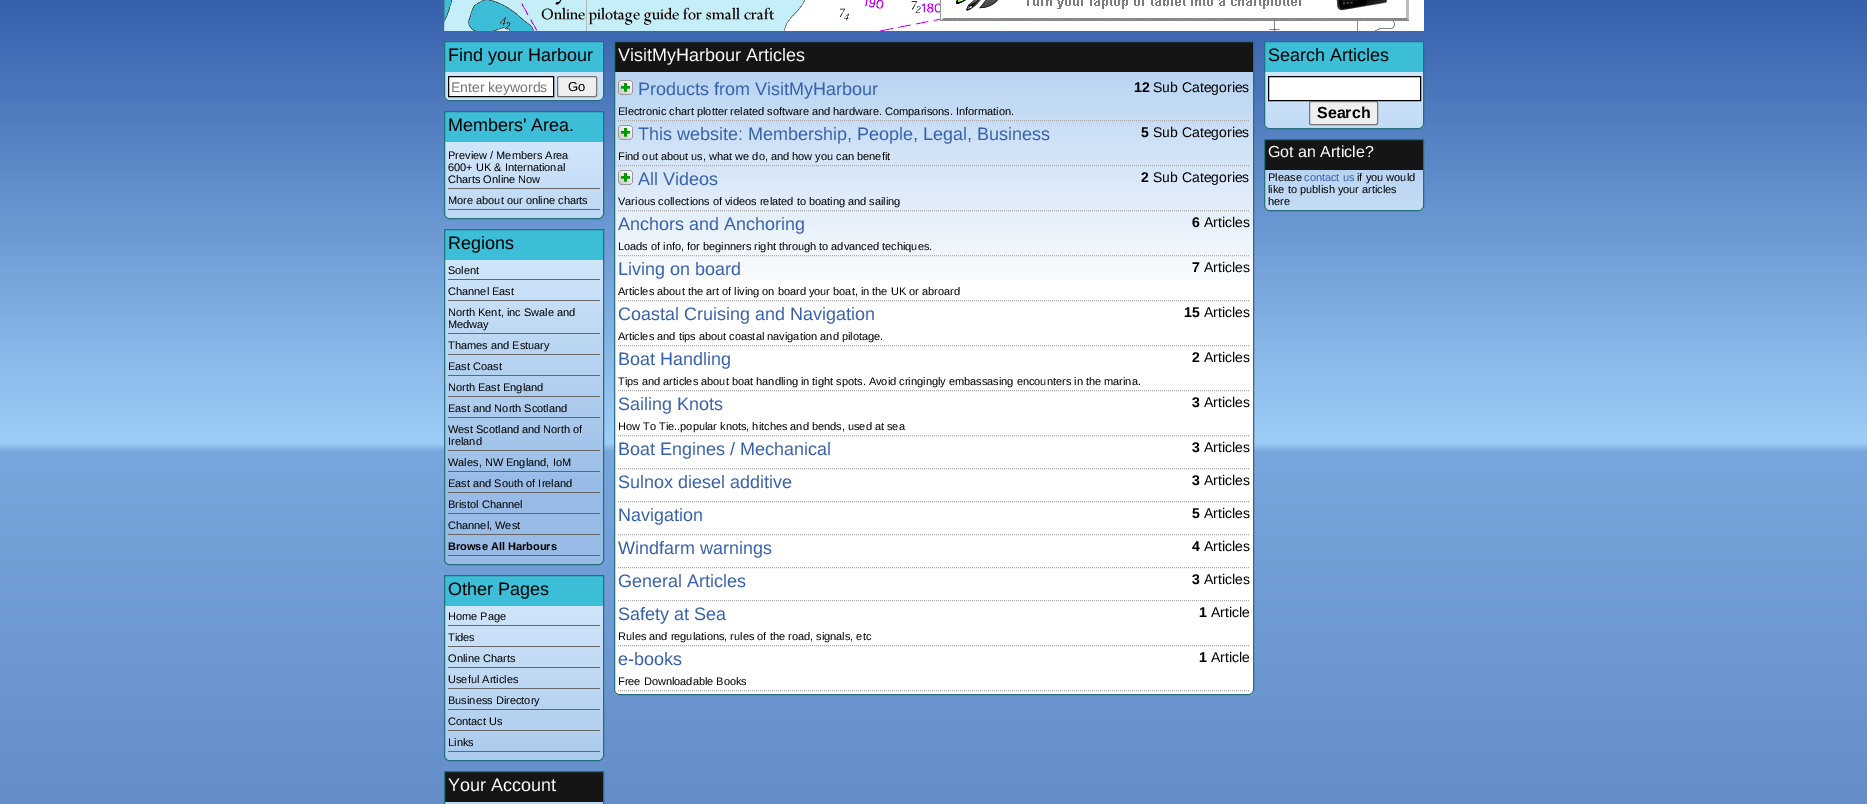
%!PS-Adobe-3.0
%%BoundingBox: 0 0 1867 804
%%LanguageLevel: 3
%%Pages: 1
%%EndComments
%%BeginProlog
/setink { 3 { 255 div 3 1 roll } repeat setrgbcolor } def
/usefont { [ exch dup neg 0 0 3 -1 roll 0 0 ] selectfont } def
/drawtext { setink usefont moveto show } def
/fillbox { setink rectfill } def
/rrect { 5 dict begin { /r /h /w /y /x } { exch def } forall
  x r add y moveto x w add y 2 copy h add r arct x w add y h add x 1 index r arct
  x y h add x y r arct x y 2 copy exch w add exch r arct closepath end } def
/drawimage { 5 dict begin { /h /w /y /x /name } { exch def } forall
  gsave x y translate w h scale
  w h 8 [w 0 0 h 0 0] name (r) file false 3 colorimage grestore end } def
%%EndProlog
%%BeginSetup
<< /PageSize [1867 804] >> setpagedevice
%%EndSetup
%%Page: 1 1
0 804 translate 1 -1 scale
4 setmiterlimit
0 0 1867 804 255 255 255 fillbox
(assets/img1.rgb) 0 0 1867 804 drawimage
(assets/img2.rgb) 444 0 980 31 drawimage
940 0 1 21 153 153 153 fillbox
(assets/img3.rgb) 941 0 468 21 drawimage
(assets/img4.rgb) 444 42 160 59 drawimage
37 111 127 setink
444.5 41.5 moveto 603.5 41.5 lineto 603.5 96 lineto 603.5 98.5 601.5 100.5 599 100.5 curveto 449 100.5 lineto 446.5 100.5 444.5 98.5 444.5 96 curveto closepath stroke
(Find your Harbour) 448 61 /LiberationSans-Regular 18 0 0 0 drawtext
255 255 255 setink
448.5 76.5 moveto 553.5 76.5 lineto 553.5 96.5 lineto 448.5 96.5 lineto closepath gsave fill grestore
0 0 0 setink
stroke
(Enter keywords) 451 92 /LiberationSans-Regular 14 117 117 117 drawtext
239 239 239 setink
557.5 76.5 39 20 1.5 rrect gsave fill grestore
118 118 118 setink
stroke
(Go) 568 91 /LiberationSans-Regular 13 0 0 0 drawtext
(assets/img5.rgb) 444 112 160 107 drawimage
37 111 127 setink
444.5 111.5 moveto 603.5 111.5 lineto 603.5 214 lineto 603.5 216.5 601.5 218.5 599 218.5 curveto 449 218.5 lineto 446.5 218.5 444.5 216.5 444.5 214 curveto closepath stroke
(Members' Area.) 448 131 /LiberationSans-Regular 18 0 0 0 drawtext
448 188 152 1 102 102 102 fillbox
(Preview / Members Area) 448 159 /LiberationSans-Regular 11 0 0 0 drawtext
(600+ UK & International) 448 171 /LiberationSans-Regular 11 0 0 0 drawtext
(Charts Online Now) 448 183 /LiberationSans-Regular 11 0 0 0 drawtext
448 209 152 1 102 102 102 fillbox
(More about our online charts) 448 204 /LiberationSans-Regular 11 0 0 0 drawtext
152 188 230 setink
444 229 moveto 604 229 lineto 604 560 lineto 604 563 602 565 599 565 curveto 449 565 lineto 446 565 444 563 444 560 curveto closepath fill
(assets/img6.rgb) 445 230 158 244 drawimage
37 111 127 setink
444.5 229.5 moveto 603.5 229.5 lineto 603.5 560 lineto 603.5 562.5 601.5 564.5 599 564.5 curveto 449 564.5 lineto 446.5 564.5 444.5 562.5 444.5 560 curveto closepath stroke
(Regions) 448 249 /LiberationSans-Regular 18 0 0 0 drawtext
448 279 152 1 102 102 102 fillbox
(Solent) 448 274 /LiberationSans-Regular 11 0 0 0 drawtext
448 300 152 1 102 102 102 fillbox
(Channel East) 448 295 /LiberationSans-Regular 11 0 0 0 drawtext
448 333 152 1 102 102 102 fillbox
(North Kent, inc Swale and) 448 316 /LiberationSans-Regular 11 0 0 0 drawtext
(Medway) 448 328 /LiberationSans-Regular 11 0 0 0 drawtext
448 354 152 1 102 102 102 fillbox
(Thames and Estuary) 448 349 /LiberationSans-Regular 11 0 0 0 drawtext
448 375 152 1 102 102 102 fillbox
(East Coast) 448 370 /LiberationSans-Regular 11 0 0 0 drawtext
448 396 152 1 102 102 102 fillbox
(North East England) 448 391 /LiberationSans-Regular 11 0 0 0 drawtext
448 417 152 1 102 102 102 fillbox
(East and North Scotland) 448 412 /LiberationSans-Regular 11 0 0 0 drawtext
448 450 152 1 102 102 102 fillbox
(West Scotland and North of) 448 433 /LiberationSans-Regular 11 0 0 0 drawtext
(Ireland) 448 445 /LiberationSans-Regular 11 0 0 0 drawtext
448 471 152 1 102 102 102 fillbox
(Wales, NW England, IoM) 448 466 /LiberationSans-Regular 11 0 0 0 drawtext
448 492 152 1 102 102 102 fillbox
(East and South of Ireland) 448 487 /LiberationSans-Regular 11 0 0 0 drawtext
448 513 152 1 102 102 102 fillbox
(Bristol Channel) 448 508 /LiberationSans-Regular 11 0 0 0 drawtext
448 534 152 1 102 102 102 fillbox
(Channel, West) 448 529 /LiberationSans-Regular 11 0 0 0 drawtext
448 555 152 1 102 102 102 fillbox
(Browse All Harbours) 448 550 /LiberationSans-Bold 11 0 0 0 drawtext
(assets/img7.rgb) 444 576 160 185 drawimage
37 111 127 setink
444.5 575.5 moveto 603.5 575.5 lineto 603.5 756 lineto 603.5 758.5 601.5 760.5 599 760.5 curveto 449 760.5 lineto 446.5 760.5 444.5 758.5 444.5 756 curveto closepath stroke
(Other Pages) 448 595 /LiberationSans-Regular 18 0 0 0 drawtext
448 625 152 1 102 102 102 fillbox
(Home Page) 448 620 /LiberationSans-Regular 11 0 0 0 drawtext
448 646 152 1 102 102 102 fillbox
(Tides) 448 641 /LiberationSans-Regular 11 0 0 0 drawtext
448 667 152 1 102 102 102 fillbox
(Online Charts) 448 662 /LiberationSans-Regular 11 0 0 0 drawtext
448 688 152 1 102 102 102 fillbox
(Useful Articles) 448 683 /LiberationSans-Regular 11 0 0 0 drawtext
448 709 152 1 102 102 102 fillbox
(Business Directory) 448 704 /LiberationSans-Regular 11 0 0 0 drawtext
448 730 152 1 102 102 102 fillbox
(Contact Us) 448 725 /LiberationSans-Regular 11 0 0 0 drawtext
448 751 152 1 102 102 102 fillbox
(Links) 448 746 /LiberationSans-Regular 11 0 0 0 drawtext
(assets/img8.rgb) 445 772 158 32 drawimage
37 111 127 setink
444.5 771.5 159 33 rectstroke
(Your Account) 448 791 /LiberationSans-Regular 18 255 255 255 drawtext
614 41 moveto 1254 41 lineto 1254 690 lineto 1254 693 1252 695 1249 695 curveto 619 695 lineto 616 695 614 693 614 690 curveto closepath fill
(assets/img9.rgb) 615 42 638 238 drawimage
37 111 127 setink
614.5 41.5 moveto 1253.5 41.5 lineto 1253.5 690 lineto 1253.5 692.5 1251.5 694.5 1249 694.5 curveto 619 694.5 lineto 616.5 694.5 614.5 692.5 614.5 690 curveto closepath stroke
(VisitMyHarbour Articles) 618 61 /LiberationSans-Regular 18 255 255 255 drawtext
170 170 170 setink
[1 1] 0 setdash
618 120.5 moveto 1250 120.5 lineto stroke
(assets/img10.rgb) 618 80 15 15 drawimage
(Products from VisitMyHarbour) 638 95 /LiberationSans-Regular 18 55 97 173 drawtext
(12) 1134 92 /LiberationSans-Bold 14 0 0 0 drawtext
(Sub Categories) 1153 92 /LiberationSans-Regular 14 0 0 0 drawtext
(Electronic chart plotter related software and hardware. Comparisons. Information.) 618 115 /LiberationSans-Regular 11 0 0 0 drawtext
170 170 170 setink
618 165.5 moveto 1250 165.5 lineto stroke
(assets/img11.rgb) 618 125 15 15 drawimage
(This website: Membership, People, Legal, Business) 638 140 /LiberationSans-Regular 18 55 97 173 drawtext
(5) 1141 137 /LiberationSans-Bold 14 0 0 0 drawtext
(Sub Categories) 1153 137 /LiberationSans-Regular 14 0 0 0 drawtext
(Find out about us, what we do, and how you can benefit) 618 160 /LiberationSans-Regular 11 0 0 0 drawtext
170 170 170 setink
618 210.5 moveto 1250 210.5 lineto stroke
(assets/img12.rgb) 618 170 15 15 drawimage
(All Videos) 638 185 /LiberationSans-Regular 18 55 97 173 drawtext
(2) 1141 182 /LiberationSans-Bold 14 0 0 0 drawtext
(Sub Categories) 1153 182 /LiberationSans-Regular 14 0 0 0 drawtext
(Various collections of videos related to boating and sailing) 618 205 /LiberationSans-Regular 11 0 0 0 drawtext
170 170 170 setink
618 255.5 moveto 1250 255.5 lineto stroke
(Anchors and Anchoring) 618 230 /LiberationSans-Regular 18 55 97 173 drawtext
(6) 1192 227 /LiberationSans-Bold 14 0 0 0 drawtext
(Articles) 1204 227 /LiberationSans-Regular 14 0 0 0 drawtext
(Loads of info, for beginners right through to advanced techiques.) 618 250 /LiberationSans-Regular 11 0 0 0 drawtext
170 170 170 setink
618 300.5 moveto 1250 300.5 lineto stroke
(Living on board) 618 275 /LiberationSans-Regular 18 55 97 173 drawtext
(7) 1192 272 /LiberationSans-Bold 14 0 0 0 drawtext
(Articles) 1204 272 /LiberationSans-Regular 14 0 0 0 drawtext
(Articles about the art of living on board your boat, in the UK or abroard) 618 295 /LiberationSans-Regular 11 0 0 0 drawtext
170 170 170 setink
618 345.5 moveto 1250 345.5 lineto stroke
(Coastal Cruising and Navigation) 618 320 /LiberationSans-Regular 18 55 97 173 drawtext
(15) 1184 317 /LiberationSans-Bold 14 0 0 0 drawtext
(Articles) 1204 317 /LiberationSans-Regular 14 0 0 0 drawtext
(Articles and tips about coastal navigation and pilotage.) 618 340 /LiberationSans-Regular 11 0 0 0 drawtext
170 170 170 setink
618 390.5 moveto 1250 390.5 lineto stroke
(Boat Handling) 618 365 /LiberationSans-Regular 18 55 97 173 drawtext
(2) 1192 362 /LiberationSans-Bold 14 0 0 0 drawtext
(Articles) 1204 362 /LiberationSans-Regular 14 0 0 0 drawtext
(Tips and articles about boat handling in tight spots. Avoid cringingly embassasing encounters in the marina.) 618 385 /LiberationSans-Regular 11 0 0 0 drawtext
170 170 170 setink
618 435.5 moveto 1250 435.5 lineto stroke
(Sailing Knots) 618 410 /LiberationSans-Regular 18 55 97 173 drawtext
(3) 1192 407 /LiberationSans-Bold 14 0 0 0 drawtext
(Articles) 1204 407 /LiberationSans-Regular 14 0 0 0 drawtext
(How To Tie..popular knots, hitches and bends, used at sea) 618 430 /LiberationSans-Regular 11 0 0 0 drawtext
170 170 170 setink
618 468.5 moveto 1250 468.5 lineto stroke
(Boat Engines / Mechanical) 618 455 /LiberationSans-Regular 18 55 97 173 drawtext
(3) 1192 452 /LiberationSans-Bold 14 0 0 0 drawtext
(Articles) 1204 452 /LiberationSans-Regular 14 0 0 0 drawtext
170 170 170 setink
618 501.5 moveto 1250 501.5 lineto stroke
(Sulnox diesel additive) 618 488 /LiberationSans-Regular 18 55 97 173 drawtext
(3) 1192 485 /LiberationSans-Bold 14 0 0 0 drawtext
(Articles) 1204 485 /LiberationSans-Regular 14 0 0 0 drawtext
170 170 170 setink
618 534.5 moveto 1250 534.5 lineto stroke
(Navigation) 618 521 /LiberationSans-Regular 18 55 97 173 drawtext
(5) 1192 518 /LiberationSans-Bold 14 0 0 0 drawtext
(Articles) 1204 518 /LiberationSans-Regular 14 0 0 0 drawtext
170 170 170 setink
618 567.5 moveto 1250 567.5 lineto stroke
(Windfarm warnings) 618 554 /LiberationSans-Regular 18 55 97 173 drawtext
(4) 1192 551 /LiberationSans-Bold 14 0 0 0 drawtext
(Articles) 1204 551 /LiberationSans-Regular 14 0 0 0 drawtext
170 170 170 setink
618 600.5 moveto 1250 600.5 lineto stroke
(General Articles) 618 587 /LiberationSans-Regular 18 55 97 173 drawtext
(3) 1192 584 /LiberationSans-Bold 14 0 0 0 drawtext
(Articles) 1204 584 /LiberationSans-Regular 14 0 0 0 drawtext
170 170 170 setink
618 645.5 moveto 1250 645.5 lineto stroke
(Safety at Sea) 618 620 /LiberationSans-Regular 18 55 97 173 drawtext
(1) 1199 617 /LiberationSans-Bold 14 0 0 0 drawtext
(Article) 1211 617 /LiberationSans-Regular 14 0 0 0 drawtext
(Rules and regulations, rules of the road, signals, etc) 618 640 /LiberationSans-Regular 11 0 0 0 drawtext
170 170 170 setink
618 690.5 moveto 1250 690.5 lineto stroke
(e-books) 618 665 /LiberationSans-Regular 18 55 97 173 drawtext
(1) 1199 662 /LiberationSans-Bold 14 0 0 0 drawtext
(Article) 1211 662 /LiberationSans-Regular 14 0 0 0 drawtext
(Free Downloadable Books) 618 685 /LiberationSans-Regular 11 0 0 0 drawtext
(assets/img13.rgb) 1264 42 160 87 drawimage
37 111 127 setink
[] 0 setdash
1264.5 41.5 moveto 1423.5 41.5 lineto 1423.5 124 lineto 1423.5 126.5 1421.5 128.5 1419 128.5 curveto 1269 128.5 lineto 1266.5 128.5 1264.5 126.5 1264.5 124 curveto closepath stroke
(Search Articles) 1268 61 /LiberationSans-Regular 18 0 0 0 drawtext
255 255 255 setink
1268.5 76.5 moveto 1420.5 76.5 lineto 1420.5 100.5 lineto 1268.5 100.5 lineto closepath gsave fill grestore
0 0 0 setink
stroke
239 239 239 setink
1309.5 101.5 68 23 1.5 rrect gsave fill grestore
118 118 118 setink
stroke
(Search) 1317 118 /LiberationSans-Bold 16 0 0 0 drawtext
(assets/img14.rgb) 1264 140 160 71 drawimage
37 111 127 setink
1264.5 139.5 moveto 1423.5 139.5 lineto 1423.5 206 lineto 1423.5 208.5 1421.5 210.5 1419 210.5 curveto 1269 210.5 lineto 1266.5 210.5 1264.5 208.5 1264.5 206 curveto closepath stroke
(Got an Article?) 1268 157 /LiberationSans-Regular 16 255 255 255 drawtext
(Please) 1268 181 /LiberationSans-Regular 11 0 0 0 drawtext
(contact us) 1304 181 /LiberationSans-Regular 11 55 97 173 drawtext
(if you would) 1357 181 /LiberationSans-Regular 11 0 0 0 drawtext
(like to publish your articles) 1268 193 /LiberationSans-Regular 11 0 0 0 drawtext
(here) 1268 205 /LiberationSans-Regular 11 0 0 0 drawtext
showpage
%%EOF
